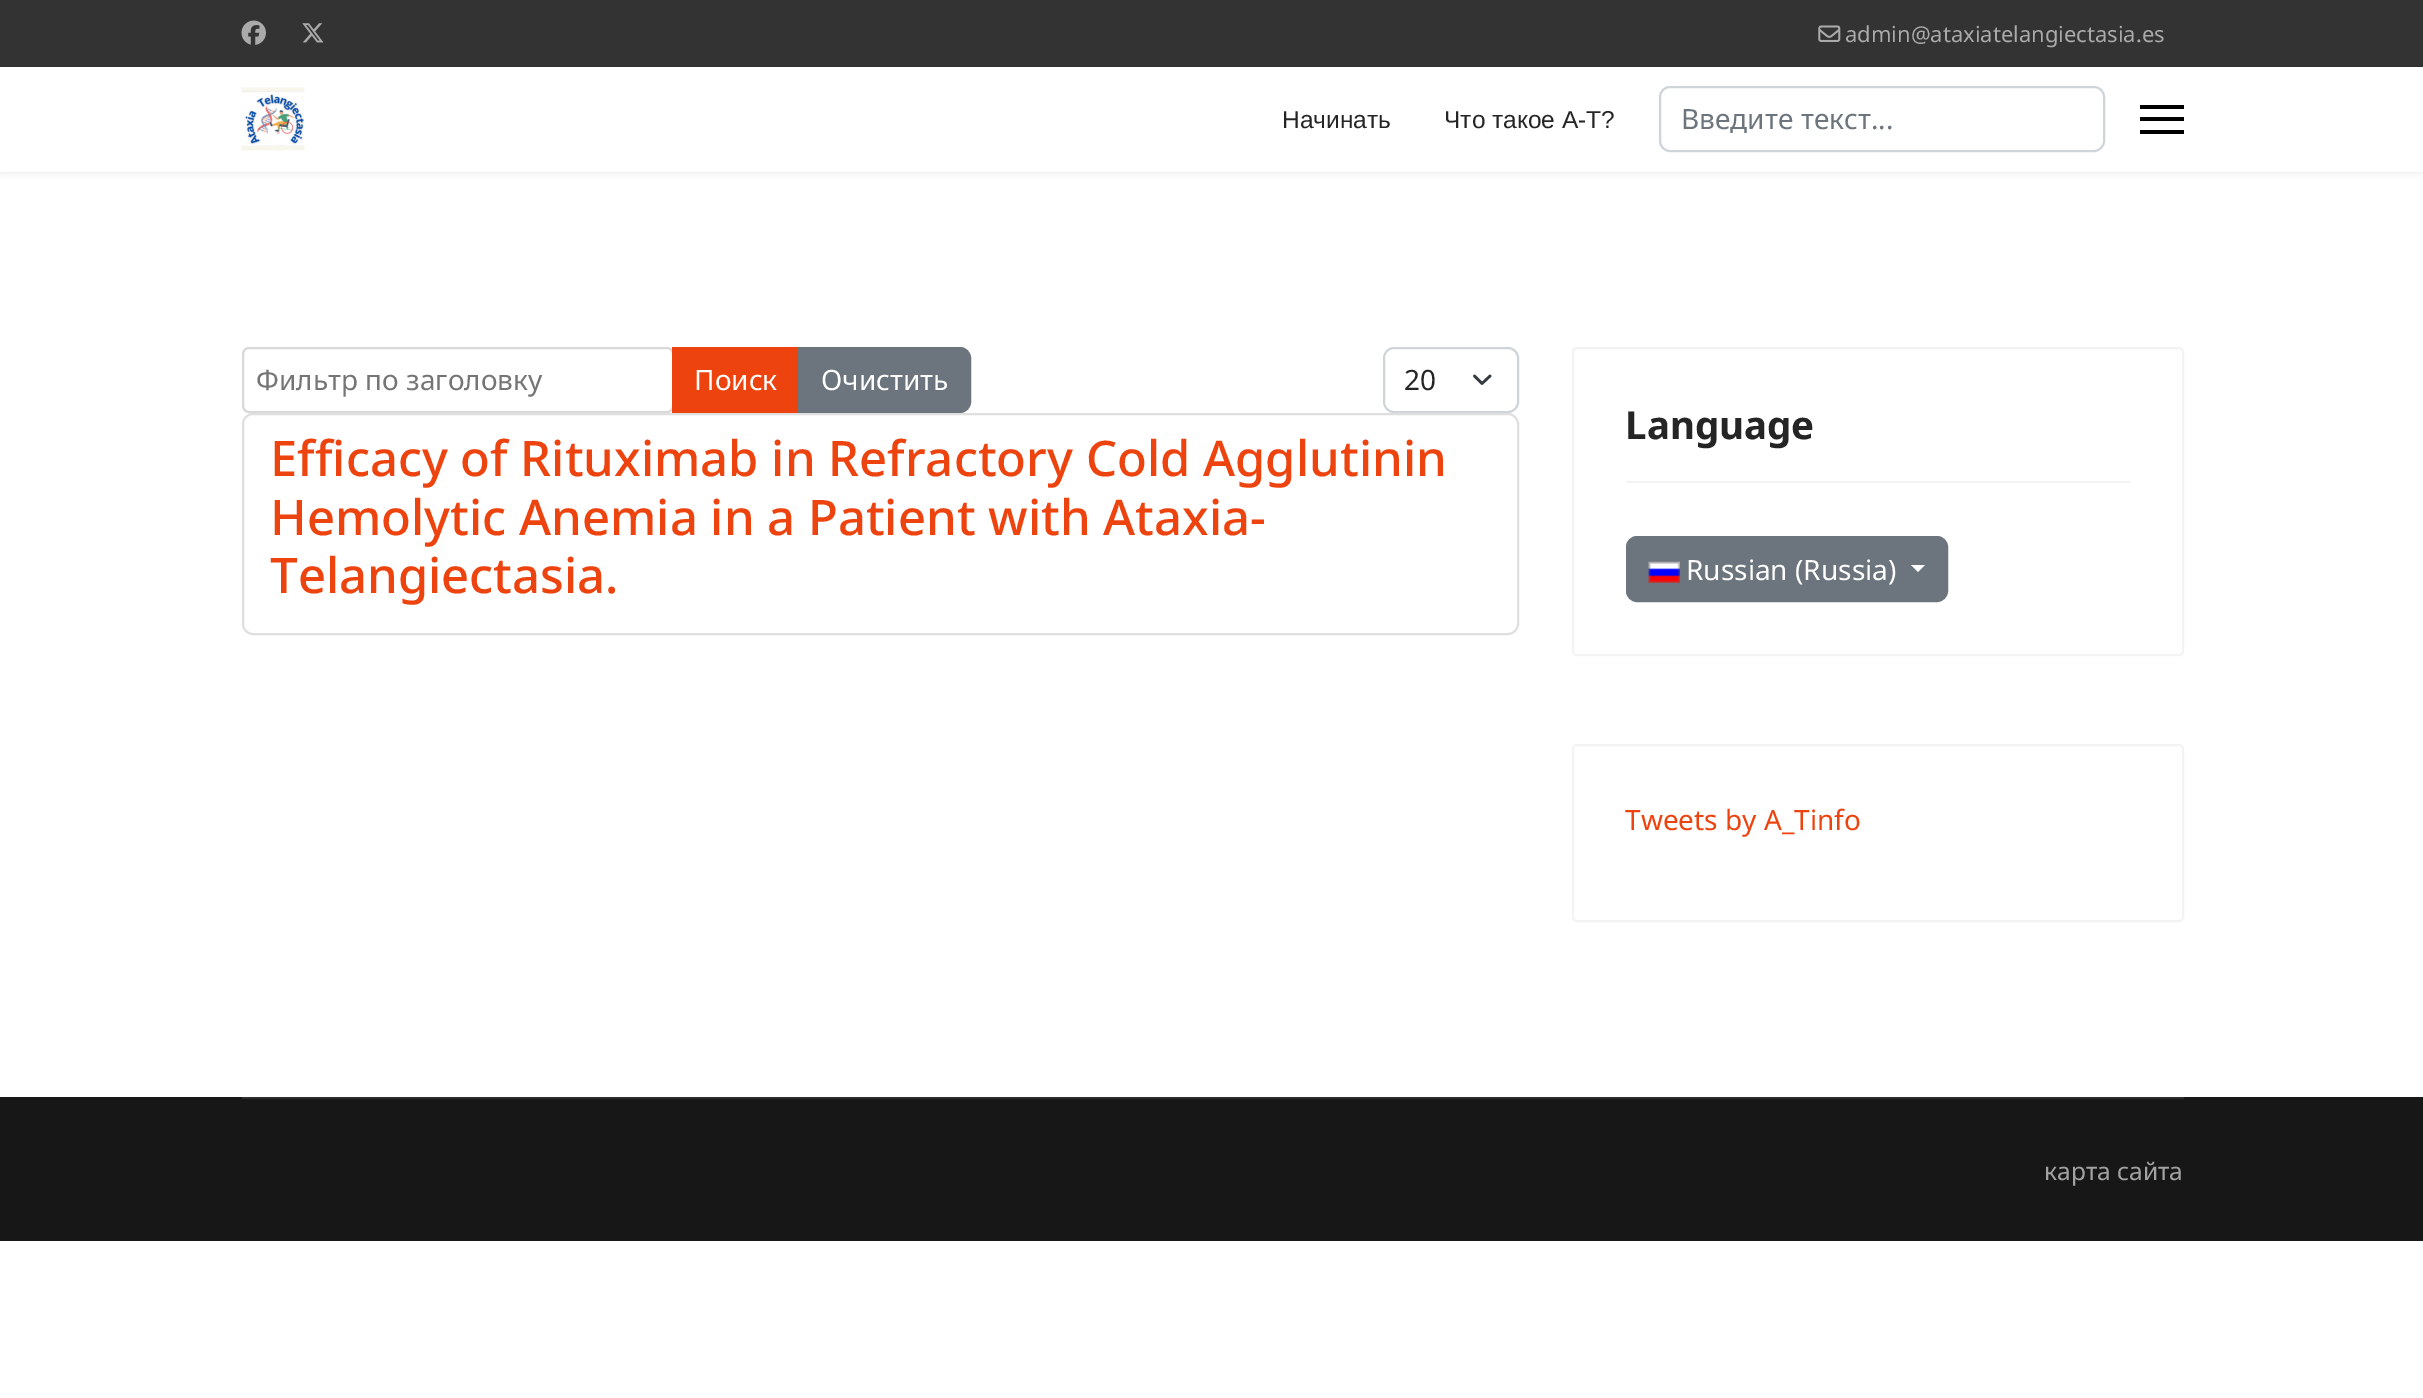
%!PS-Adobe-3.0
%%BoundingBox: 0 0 2423 1398
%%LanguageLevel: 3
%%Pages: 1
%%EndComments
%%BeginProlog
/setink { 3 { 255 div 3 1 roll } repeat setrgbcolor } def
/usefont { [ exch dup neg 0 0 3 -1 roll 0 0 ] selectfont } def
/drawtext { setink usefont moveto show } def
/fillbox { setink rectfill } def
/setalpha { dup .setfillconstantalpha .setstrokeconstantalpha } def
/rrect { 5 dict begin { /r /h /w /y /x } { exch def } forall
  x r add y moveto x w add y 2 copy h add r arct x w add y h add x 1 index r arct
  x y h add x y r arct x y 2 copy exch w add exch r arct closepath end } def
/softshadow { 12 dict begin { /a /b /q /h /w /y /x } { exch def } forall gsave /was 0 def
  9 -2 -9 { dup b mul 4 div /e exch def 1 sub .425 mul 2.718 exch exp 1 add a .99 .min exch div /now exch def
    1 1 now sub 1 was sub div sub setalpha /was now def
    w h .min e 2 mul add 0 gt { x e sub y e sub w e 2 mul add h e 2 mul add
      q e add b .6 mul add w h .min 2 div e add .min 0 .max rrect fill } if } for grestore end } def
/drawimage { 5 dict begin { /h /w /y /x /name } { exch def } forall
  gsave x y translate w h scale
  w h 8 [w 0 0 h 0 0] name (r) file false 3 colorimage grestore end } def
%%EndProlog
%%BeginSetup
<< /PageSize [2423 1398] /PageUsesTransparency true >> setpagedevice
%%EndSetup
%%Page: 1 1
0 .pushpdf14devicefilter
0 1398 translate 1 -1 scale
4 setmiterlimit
0 0 2423 1398 255 255 255 fillbox
0 0 2423 67 51 51 51 fillbox
(assets/img1.rgb) 241 20 25 25 drawimage
(assets/img2.rgb) 302 23 22 20 drawimage
(assets/img3.rgb) 1818 25 23 17 drawimage
(admin@ataxiatelangiectasia.es) 1845 42 /NotoSans-Regular 22 170 170 170 drawtext
0 0 0 setink
0 67 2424 105 0 3.5 0.1 softshadow
0 67 2423 105 255 255 255 fillbox
(assets/img4.rgb) 241 87 64 64 drawimage
(Начинать) 1282 128 /LiberationSans-Regular 24.5 37 37 37 drawtext
(Что такое А-Т?) 1444 128 /LiberationSans-Regular 24.5 37 37 37 drawtext
206 212 218 setink
2 setlinewidth
1660 87 444 64 10 rrect stroke
(Введите текст...) 1681 129 /NotoSans-Regular 28 108 117 125 drawtext
2140 105 44 4 0 0 0 fillbox
2140 117 44 4 0 0 0 fillbox
2140 130 44 4 0 0 0 fillbox
217 217 217 setink
243 348 430 64 6 rrect stroke
(Фильтр по заголовку) 256 390 /NotoSans-Regular 28 117 117 117 drawtext
672 347 126 66 236 67 15 fillbox
(Поиск) 694 390 /NotoSans-Regular 28 255 255 255 drawtext
108 117 125 setink
799 348 moveto 960 348 lineto 965.5 348 970 352.5 970 358 curveto 970 402 lineto 970 407.5 965.5 412 960 412 curveto 799 412 lineto closepath gsave fill grestore
stroke
(Очистить) 821 390 /NotoSans-Regular 28 255 255 255 drawtext
52 58 64 setink
2.6 setlinewidth
1 setlinecap
1 setlinejoin
1474.5 376 moveto 1482 383.5 lineto 1490 376 lineto stroke
206 212 218 setink
2 setlinewidth
0 setlinecap
0 setlinejoin
1384 348 134 64 10 rrect stroke
(20) 1404 390 /NotoSans-Regular 28 37 37 37 drawtext
223 223 223 setink
243 414 1275 220 10 rrect stroke
(Efficacy of Rituximab in Refractory Cold Agglutinin) 270 476 /NotoSans-Medium 49 236 67 15 drawtext
(Hemolytic Anemia in a Patient with Ataxia-) 270 535 /NotoSans-Medium 49 236 67 15 drawtext
(Telangiectasia.) 270 593 /NotoSans-Medium 49 236 67 15 drawtext
243 243 243 setink
1573 348 610 307 4 rrect stroke
1626 481 504 2 243 243 243 fillbox
(Language) 1625 439 /NotoSans-Bold 38.5 37 37 37 drawtext
108 117 125 setink
1627 537 320 64 10 rrect gsave fill grestore
stroke
(assets/img5.rgb) 1648 561 32 22 drawimage
(Russian \(Russia\)) 1686 580 /NotoSans-Regular 28 255 255 255 drawtext
1911 565 moveto 1925 565 lineto 1918 572 lineto closepath fill
243 243 243 setink
1573 745 610 176 4 rrect stroke
(Tweets by A_Tinfo) 1625 830 /NotoSans-Regular 28 236 67 15 drawtext
0 1097 2423 144 23 23 23 fillbox
242 1097 1942 2 46 46 46 fillbox
(карта сайта) 2044 1180 /NotoSans-Regular 24.5 162 162 162 drawtext
.poppdf14devicefilter showpage
%%EOF
